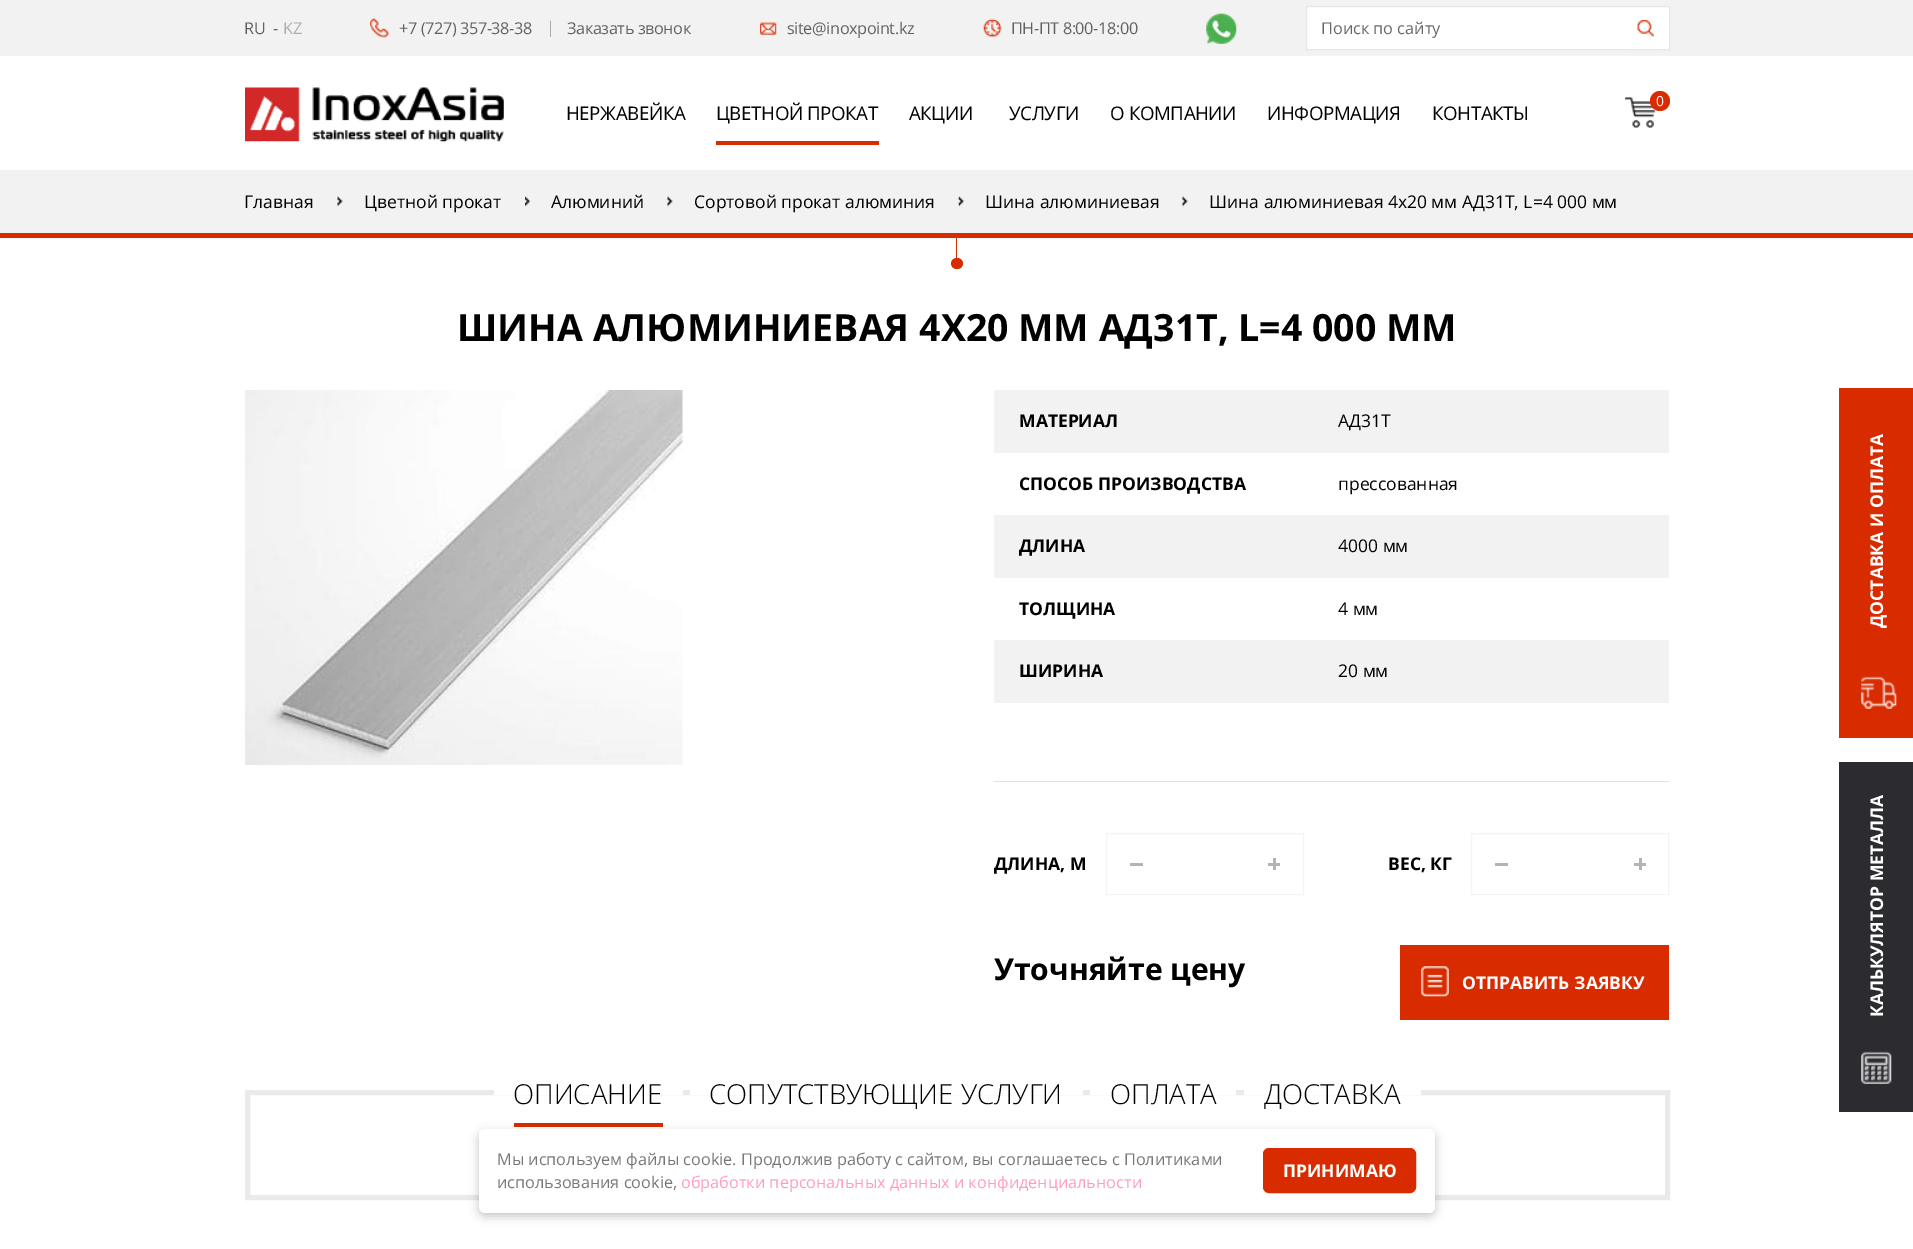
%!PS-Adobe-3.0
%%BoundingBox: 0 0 1913 1249
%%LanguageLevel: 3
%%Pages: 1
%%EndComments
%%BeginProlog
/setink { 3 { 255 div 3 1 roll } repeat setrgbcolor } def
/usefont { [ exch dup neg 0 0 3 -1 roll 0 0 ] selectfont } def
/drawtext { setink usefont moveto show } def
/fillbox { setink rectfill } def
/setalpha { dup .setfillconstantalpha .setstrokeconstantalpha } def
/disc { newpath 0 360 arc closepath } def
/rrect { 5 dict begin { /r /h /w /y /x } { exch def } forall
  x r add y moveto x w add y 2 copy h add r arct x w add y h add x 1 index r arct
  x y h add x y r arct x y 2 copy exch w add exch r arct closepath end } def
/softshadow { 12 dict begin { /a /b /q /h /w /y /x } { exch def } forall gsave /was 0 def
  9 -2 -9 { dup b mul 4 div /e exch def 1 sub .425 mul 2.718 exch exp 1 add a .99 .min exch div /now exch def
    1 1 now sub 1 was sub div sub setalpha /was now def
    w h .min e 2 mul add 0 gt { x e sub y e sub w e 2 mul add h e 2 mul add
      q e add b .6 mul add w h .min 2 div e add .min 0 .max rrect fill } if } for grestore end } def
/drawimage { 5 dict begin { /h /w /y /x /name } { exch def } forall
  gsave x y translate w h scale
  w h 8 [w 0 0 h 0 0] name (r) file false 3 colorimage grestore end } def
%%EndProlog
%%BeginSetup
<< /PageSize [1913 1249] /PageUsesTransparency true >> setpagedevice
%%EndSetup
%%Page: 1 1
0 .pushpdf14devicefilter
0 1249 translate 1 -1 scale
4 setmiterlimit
0 0 1913 1249 255 255 255 fillbox
0 0 1913 56 242 242 242 fillbox
/OpenSans-Regular 16.25 usefont
97 97 97 setink
244 34 moveto -0.4 0 (RU) ashow
273 34 moveto -0.4 0 (-) ashow
173 173 173 setink
283 34 moveto -0.4 0 (KZ) ashow
(assets/img1.rgb) 370 18 19 20 drawimage
97 97 97 setink
399 34 moveto -0.4 0 (+7 \(727\) 357-38-38) ashow
173 173 173 setink
546 33 moveto -0.4 0 (|) ashow
97 97 97 setink
567 34 moveto -0.4 0 (Заказать звонок) ashow
(assets/img2.rgb) 760 22 17 13 drawimage
787 34 moveto -0.4 0 (site@inoxpoint.kz) ashow
(assets/img3.rgb) 983 18 19 20 drawimage
1011 34 moveto -0.4 0 (ПН-ПТ 8:00-18:00) ashow
(assets/img4.rgb) 1206 13 31 31 drawimage
255 255 255 setink
1306.5 6.5 moveto 1669.5 6.5 lineto 1669.5 49.5 lineto 1306.5 49.5 lineto closepath gsave fill grestore
231 231 231 setink
stroke
(Поиск по сайту) 1321 34 /OpenSans-Regular 16.25 103 103 103 drawtext
(assets/img5.rgb) 1637 20 17 17 drawimage
(assets/img6.rgb) 245 87 259 55 drawimage
/OpenSans-Regular 18.75 usefont
0 0 0 setink
566 120 moveto -0.4 0 (НЕРЖАВЕЙКА) ashow
716 141 163 4 216 43 0 fillbox
0 0 0 setink
716 120 moveto -0.4 0 (ЦВЕТНОЙ ПРОКАТ) ashow
909 120 moveto -0.4 0 (АКЦИИ) ashow
1009 120 moveto -0.4 0 (УСЛУГИ) ashow
1110 120 moveto -0.4 0 (О КОМПАНИИ) ashow
1267 120 moveto -0.4 0 (ИНФОРМАЦИЯ) ashow
1432 120 moveto -0.4 0 (КОНТАКТЫ) ashow
(assets/img7.rgb) 1625 97 31 31 drawimage
216 43 0 setink
1660 101 10 disc fill
/OpenSans-Regular 14 usefont
255 255 255 setink
1656 106 moveto -0.4 0 (0) ashow
0 170 1913 63 242 242 242 fillbox
0 233 1913 5 216 43 0 fillbox
(Главная) 244 208 /OpenSans-Regular 17.5 0 0 0 drawtext
(assets/img8.rgb) 337 196 6 11 drawimage
(Цветной прокат) 364 208 /OpenSans-Regular 17.5 0 0 0 drawtext
(assets/img9.rgb) 525 196 5 11 drawimage
(Алюминий) 551 208 /OpenSans-Regular 17.5 0 0 0 drawtext
(assets/img8.rgb) 667 196 6 11 drawimage
(Сортовой прокат алюминия) 694 208 /OpenSans-Regular 17.5 0 0 0 drawtext
(assets/img10.rgb) 958 196 6 11 drawimage
(Шина алюминиевая) 985 208 /OpenSans-Regular 17.5 0 0 0 drawtext
(assets/img8.rgb) 1182 196 6 11 drawimage
(Шина алюминиевая 4x20 мм АД31Т, L=4 000 мм) 1209 208 /OpenSans-Regular 17.5 0 0 0 drawtext
956 238 1 20 216 43 0 fillbox
951 258 12 11 5.5 rrect fill
(ШИНА АЛЮМИНИЕВАЯ 4X20 ММ АД31Т, L=4 000 ММ) 457 341 /OpenSans-Bold 37.5 0 0 0 drawtext
(assets/img11.rgb) 245 390 438 375 drawimage
994 781 675 1 225 225 225 fillbox
994 390 675 63 242 242 242 fillbox
(МАТЕРИАЛ) 1019 427 /OpenSans-Bold 17.5 0 0 0 drawtext
(АД31Т) 1338 427 /OpenSans-Regular 17.5 0 0 0 drawtext
(СПОСОБ ПРОИЗВОДСТВА) 1019 490 /OpenSans-Bold 17.5 0 0 0 drawtext
(прессованная) 1338 490 /OpenSans-Regular 17.5 0 0 0 drawtext
994 515 675 63 242 242 242 fillbox
(ДЛИНА) 1019 552 /OpenSans-Bold 17.5 0 0 0 drawtext
(4000 мм) 1338 552 /OpenSans-Regular 17.5 0 0 0 drawtext
(ТОЛЩИНА) 1019 615 /OpenSans-Bold 17.5 0 0 0 drawtext
(4 мм) 1338 615 /OpenSans-Regular 17.5 0 0 0 drawtext
994 640 675 63 242 242 242 fillbox
(ШИРИНА) 1019 677 /OpenSans-Bold 17.5 0 0 0 drawtext
(20 мм) 1338 677 /OpenSans-Regular 17.5 0 0 0 drawtext
(ДЛИНА, М) 994 870 /OpenSans-Bold 17.5 0 0 0 drawtext
244 244 244 setink
1106.5 833.5 197 61 rectstroke
1130 863 13 3 179 179 179 fillbox
1273 858 3 12 179 179 179 fillbox
1268 863 12 3 179 179 179 fillbox
(ВЕС, КГ) 1388 870 /OpenSans-Bold 17.5 0 0 0 drawtext
244 244 244 setink
1471.5 833.5 197 61 rectstroke
1495 863 13 3 179 179 179 fillbox
1639 858 3 12 179 179 179 fillbox
1634 863 12 3 179 179 179 fillbox
(Уточняйте цену) 994 980 /OpenSans-Bold 30 0 0 0 drawtext
1400 945 269 75 216 43 0 fillbox
(assets/img12.rgb) 1421 966 28 31 drawimage
(ОТПРАВИТЬ ЗАЯВКУ) 1462 989 /OpenSans-Bold 17.5 255 255 255 drawtext
234 234 234 setink
5 setlinewidth
247.5 1092.5 1420 105 rectstroke
494 1090 189 5 255 255 255 fillbox
514 1123 149 4 216 43 0 fillbox
(ОПИСАНИЕ) 513 1104 /OpenSans-Light 27.5 0 0 0 drawtext
690 1090 393 5 255 255 255 fillbox
(СОПУТСТВУЮЩИЕ УСЛУГИ) 709 1104 /OpenSans-Light 27.5 0 0 0 drawtext
1090 1090 146 5 255 255 255 fillbox
(ОПЛАТА) 1110 1104 /OpenSans-Light 27.5 0 0 0 drawtext
1244 1090 177 5 255 255 255 fillbox
(ДОСТАВКА) 1264 1104 /OpenSans-Light 27.5 0 0 0 drawtext
1839 388 74 350 216 43 0 fillbox
/OpenSans-Bold 17.5 usefont
255 255 255 setink
gsave 1883 628 translate -90 rotate 0 0 moveto (ДОСТАВКА И ОПЛАТА) show grestore
(assets/img13.rgb) 1861 676 36 33 drawimage
1839 762 74 350 43 43 48 fillbox
255 255 255 setink
gsave 1883 1017 translate -90 rotate 0 0 moveto (КАЛЬКУЛЯТОР МЕТАЛЛА) show grestore
(assets/img14.rgb) 1861 1051 31 33 drawimage
0 0 0 setink
479 1133 956 83 6 5 0.24 softshadow
255 255 255 setink
479 1129 956 84 6 rrect fill
(Мы используем файлы cookie. Продолжив работу с сайтом, вы соглашаетесь с Политиками) 497 1165 /OpenSans-Regular 16.25 119 119 119 drawtext
(использования cookie,) 497 1188 /OpenSans-Regular 16.25 119 119 119 drawtext
(обработки персональных данных и конфиденциальности) 681 1188 /OpenSans-Regular 16.25 255 155 193 drawtext
216 43 0 setink
1263.5 1148.5 152 44 5.5 rrect gsave fill grestore
1 setlinewidth
stroke
(ПРИНИМАЮ) 1283 1177 /OpenSans-Bold 17.5 255 255 255 drawtext
.poppdf14devicefilter showpage
%%EOF
